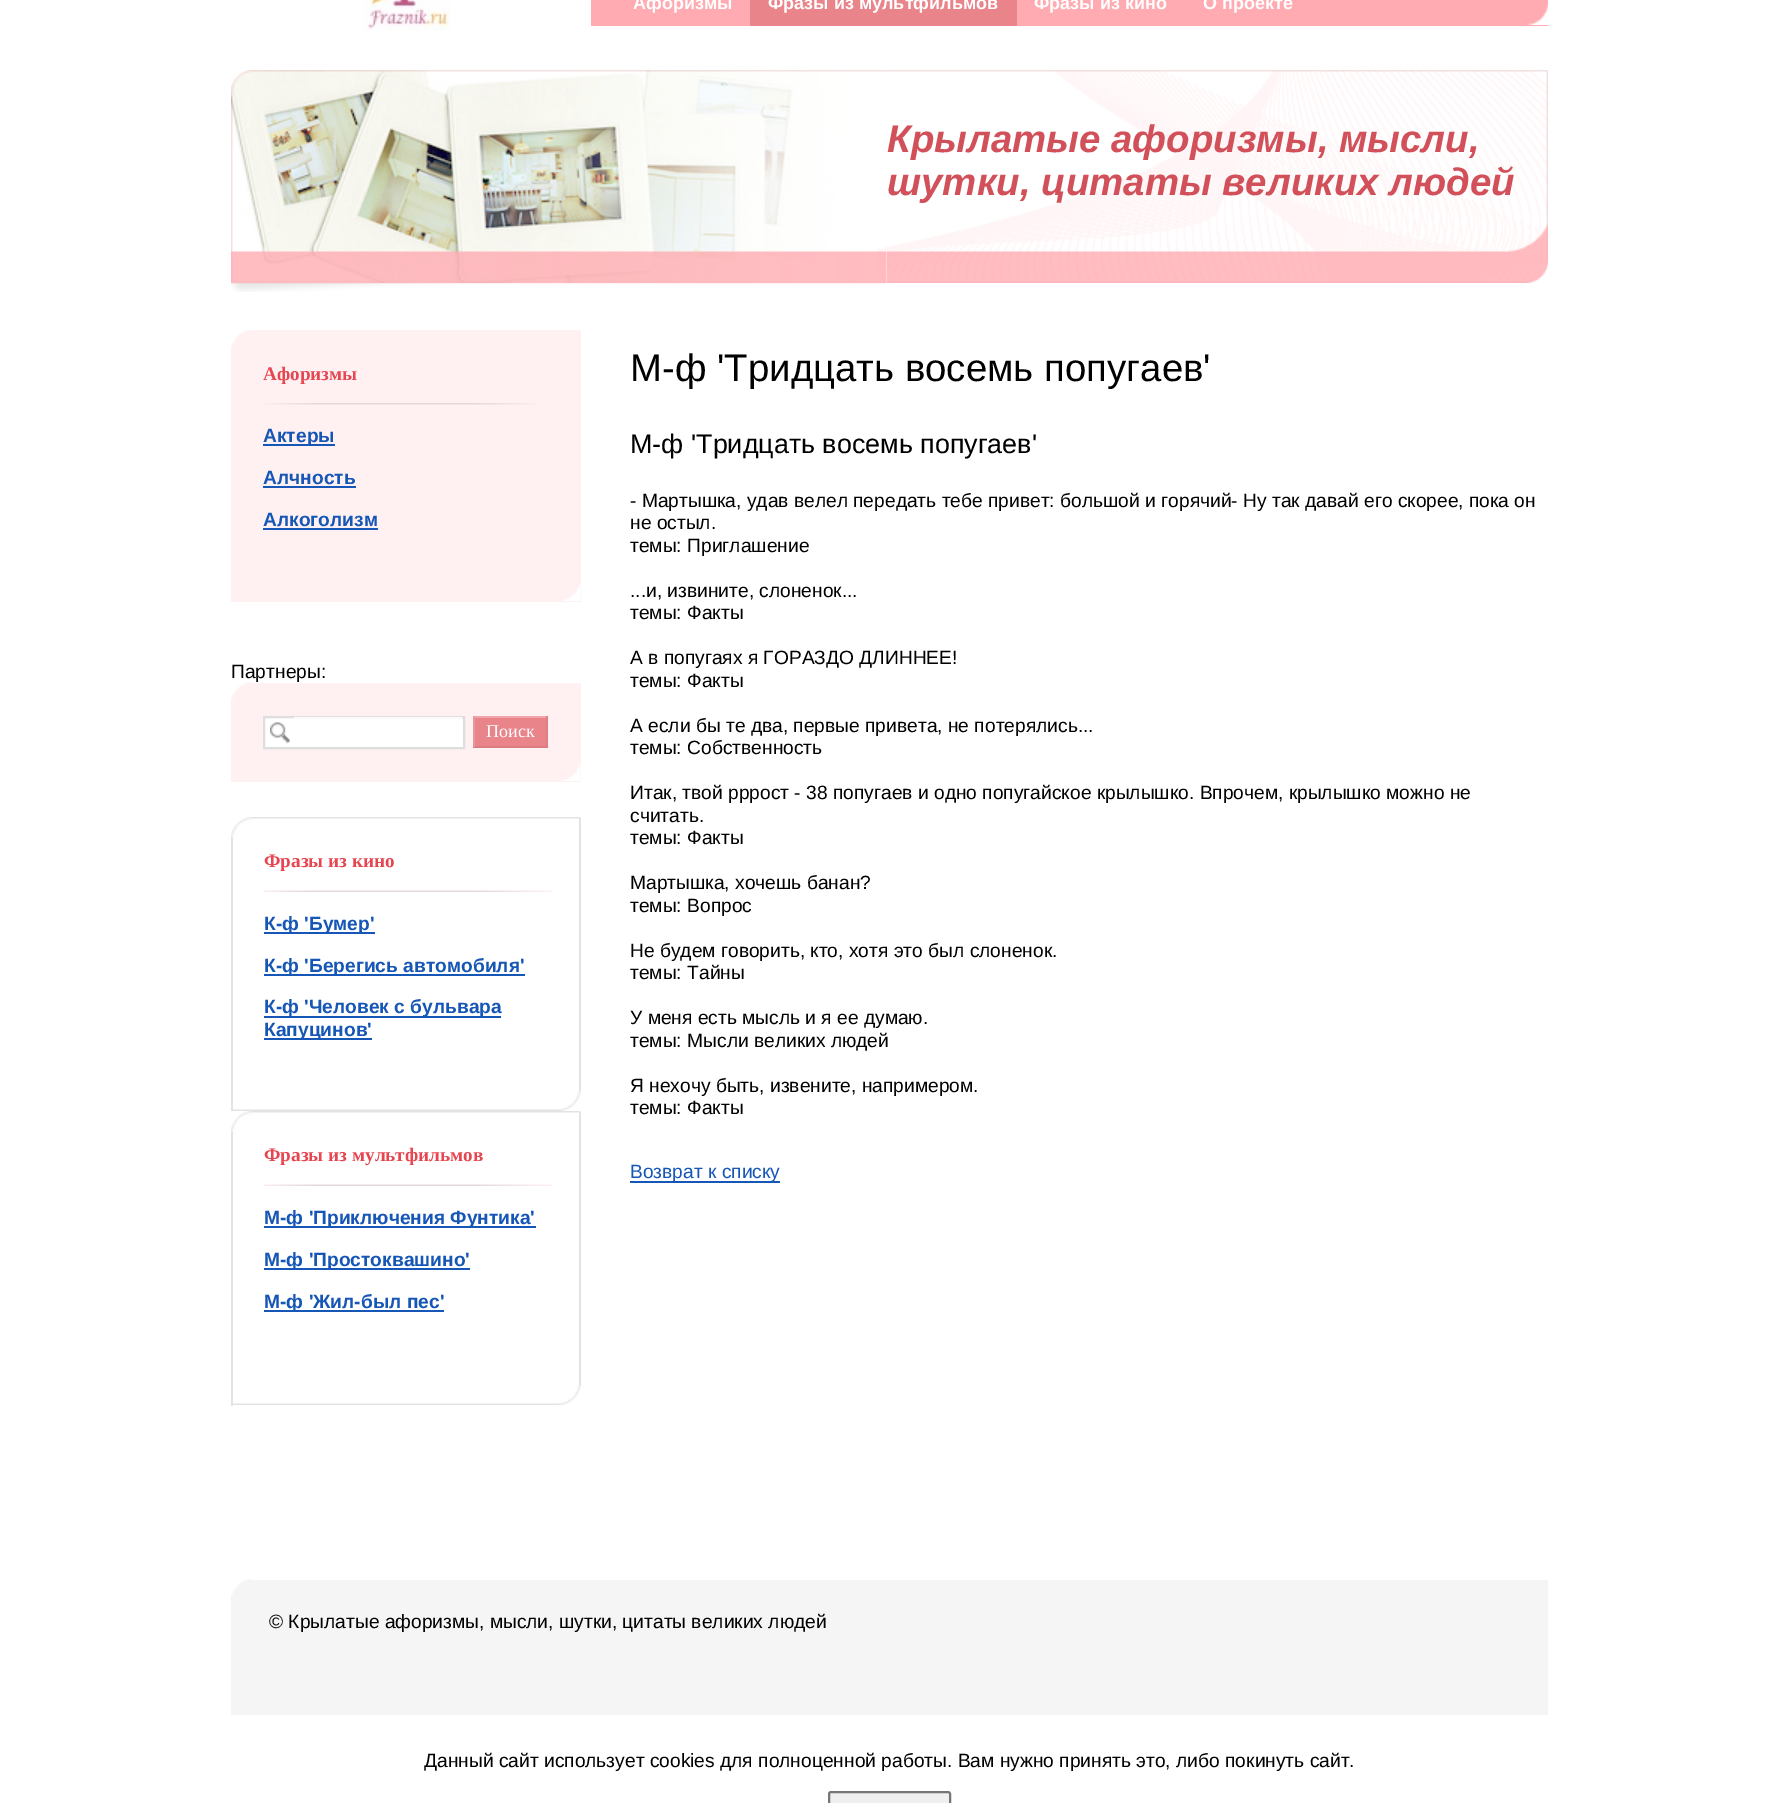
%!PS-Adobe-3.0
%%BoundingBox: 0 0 1779 1803
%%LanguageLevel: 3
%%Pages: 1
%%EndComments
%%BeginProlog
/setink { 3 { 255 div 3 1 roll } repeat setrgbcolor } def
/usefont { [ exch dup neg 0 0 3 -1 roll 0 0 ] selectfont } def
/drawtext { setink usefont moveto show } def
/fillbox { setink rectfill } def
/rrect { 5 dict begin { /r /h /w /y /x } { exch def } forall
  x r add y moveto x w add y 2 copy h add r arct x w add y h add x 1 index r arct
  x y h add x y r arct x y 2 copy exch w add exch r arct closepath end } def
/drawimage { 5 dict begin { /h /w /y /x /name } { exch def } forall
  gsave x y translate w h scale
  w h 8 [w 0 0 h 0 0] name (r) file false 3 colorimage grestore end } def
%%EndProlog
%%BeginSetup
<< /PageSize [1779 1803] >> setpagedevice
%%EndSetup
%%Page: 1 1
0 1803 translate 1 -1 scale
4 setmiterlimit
0 0 1779 1803 255 255 255 fillbox
(assets/img1.rgb) 363 0 88 31 drawimage
591 0 957 26 255 171 177 fillbox
591 0 1 1 255 178 183 fillbox
(assets/img2.rgb) 1527 4 21 21 drawimage
(Афоризмы) 633 9 /LiberationSans-Bold 18 255 255 255 drawtext
750 0 267 26 233 132 139 fillbox
(Фразы из мультфильмов) 768 9 /LiberationSans-Bold 18 255 255 255 drawtext
(Фразы из кино) 1034 9 /LiberationSans-Bold 18 255 255 255 drawtext
(О проекте) 1203 9 /LiberationSans-Bold 18 255 255 255 drawtext
(assets/img5.rgb) 886 70 662 213 drawimage
(assets/img4.rgb) 231 70 656 213 drawimage
(assets/img3.rgb) 231 70 656 222 drawimage
(Крылатые афоризмы, мысли,) 887 152 /LiberationSans-BoldItalic 38.4 209 80 89 drawtext
(шутки, цитаты великих людей) 887 195 /LiberationSans-BoldItalic 38.4 209 80 89 drawtext
231 330 350 272 255 241 242 fillbox
(assets/img6.rgb) 231 330 18 17 drawimage
(assets/img7.rgb) 562 584 19 17 drawimage
(assets/img8.rgb) 263 403 273 2 drawimage
(Афоризмы) 263 380 /LiberationSerif-Bold 19.2 231 69 80 drawtext
263 444 72 2 21 86 182 fillbox
(Актеры) 263 442 /LiberationSans-Bold 19.2 21 86 182 drawtext
(Алчность) 263 484 /LiberationSans-Bold 19.2 21 86 182 drawtext
263 486 93 2 21 86 182 fillbox
(Алкоголизм) 263 526 /LiberationSans-Bold 19.2 21 86 182 drawtext
263 528 115 2 21 86 182 fillbox
(Партнеры:) 231 678 /LiberationSans-Regular 19.2 0 0 0 drawtext
231 683 350 99 255 241 242 fillbox
(assets/img9.rgb) 231 682 21 18 drawimage
(assets/img7.rgb) 562 764 19 17 drawimage
265 718 198 29 255 255 255 fillbox
(assets/img10.rgb) 270 722 20 22 drawimage
222 222 222 setink
2 setlinewidth
264 717 200 31 rectstroke
294 717 168 1 255 255 255 fillbox
475 718 71 28 233 132 139 fillbox
473 716 75 2 239 167 172 fillbox
546 716 2 31 224 127 134 fillbox
473 746 75 2 219 124 131 fillbox
473 716 2 31 236 149 155 fillbox
(Поиск) 486 737 /LiberationSerif-Regular 18 255 255 255 drawtext
(assets/img11.rgb) 231 817 350 20 drawimage
579 818 2 274 227 227 227 fillbox
231 837 2 275 227 227 227 fillbox
(assets/img12.rgb) 264 890 288 2 drawimage
(Фразы из кино) 264 867 /LiberationSerif-Bold 19.2 231 69 80 drawtext
264 932 111 2 21 86 182 fillbox
(К-ф 'Бумер') 264 930 /LiberationSans-Bold 19.2 21 86 182 drawtext
264 974 261 2 21 86 182 fillbox
(К-ф 'Берегись автомобиля') 264 972 /LiberationSans-Bold 19.2 21 86 182 drawtext
264 1016 237 2 21 86 182 fillbox
(К-ф 'Человек с бульвара) 264 1013 /LiberationSans-Bold 19.2 21 86 182 drawtext
264 1038 108 2 21 86 182 fillbox
(Капуцинов') 264 1036 /LiberationSans-Bold 19.2 21 86 182 drawtext
(assets/img13.rgb) 233 1091 348 20 drawimage
(assets/img11.rgb) 231 1111 350 20 drawimage
579 1112 2 274 227 227 227 fillbox
231 1131 2 275 227 227 227 fillbox
(assets/img12.rgb) 264 1184 288 2 drawimage
(Фразы из мультфильмов) 264 1161 /LiberationSerif-Bold 19.2 231 69 80 drawtext
264 1226 272 2 21 86 182 fillbox
(М-ф 'Приключения Фунтика') 264 1224 /LiberationSans-Bold 19.2 21 86 182 drawtext
264 1268 206 2 21 86 182 fillbox
(М-ф 'Простоквашино') 264 1266 /LiberationSans-Bold 19.2 21 86 182 drawtext
264 1310 180 2 21 86 182 fillbox
(М-ф 'Жил-был пес') 264 1308 /LiberationSans-Bold 19.2 21 86 182 drawtext
(assets/img13.rgb) 233 1385 348 20 drawimage
(М-ф 'Тридцать восемь попугаев') 630 381 /LiberationSans-Regular 38.4 0 0 0 drawtext
(М-ф 'Тридцать восемь попугаев') 630 453 /LiberationSans-Regular 26.9 0 0 0 drawtext
(- Мартышка, удав велел передать тебе привет: большой и горячий- Ну так давай его скорее, пока он) 630 507 /LiberationSans-Regular 19.2 0 0 0 drawtext
(не остыл.) 630 529 /LiberationSans-Regular 19.2 0 0 0 drawtext
(темы: Приглашение) 630 552 /LiberationSans-Regular 19.2 0 0 0 drawtext
(...и, извините, слоненок...) 630 597 /LiberationSans-Regular 19.2 0 0 0 drawtext
(темы: Факты) 630 619 /LiberationSans-Regular 19.2 0 0 0 drawtext
(А в попугаях я ГОРАЗДО ДЛИННЕЕ!) 630 664 /LiberationSans-Regular 19.2 0 0 0 drawtext
(темы: Факты) 630 687 /LiberationSans-Regular 19.2 0 0 0 drawtext
(А если бы те два, первые привета, не потерялись...) 630 732 /LiberationSans-Regular 19.2 0 0 0 drawtext
(темы: Собственность) 630 754 /LiberationSans-Regular 19.2 0 0 0 drawtext
(Итак, твой рррост - 38 попугаев и одно попугайское крылышко. Впрочем, крылышко можно не) 630 799 /LiberationSans-Regular 19.2 0 0 0 drawtext
(считать.) 630 822 /LiberationSans-Regular 19.2 0 0 0 drawtext
(темы: Факты) 630 844 /LiberationSans-Regular 19.2 0 0 0 drawtext
(Мартышка, хочешь банан?) 630 889 /LiberationSans-Regular 19.2 0 0 0 drawtext
(темы: Вопрос) 630 912 /LiberationSans-Regular 19.2 0 0 0 drawtext
(Не будем говорить, кто, хотя это был слоненок.) 630 957 /LiberationSans-Regular 19.2 0 0 0 drawtext
(темы: Тайны) 630 979 /LiberationSans-Regular 19.2 0 0 0 drawtext
(У меня есть мысль и я ее думаю.) 630 1024 /LiberationSans-Regular 19.2 0 0 0 drawtext
(темы: Мысли великих людей) 630 1047 /LiberationSans-Regular 19.2 0 0 0 drawtext
(Я нехочу быть, извените, напримером.) 630 1092 /LiberationSans-Regular 19.2 0 0 0 drawtext
(темы: Факты) 630 1114 /LiberationSans-Regular 19.2 0 0 0 drawtext
630 1181 150 2 21 86 182 fillbox
(Возврат к списку) 630 1178 /LiberationSans-Regular 19.2 21 86 182 drawtext
231 1580 1317 135 245 245 245 fillbox
(assets/img14.rgb) 231 1579 21 17 drawimage
(© Крылатые афоризмы, мысли, шутки, цитаты великих людей) 269 1628 /LiberationSans-Regular 19.2 0 0 0 drawtext
(Данный сайт использует cookies для полноценной работы. Вам нужно принять это, либо покинуть сайт.) 424 1767 /LiberationSans-Regular 19.2 0 0 0 drawtext
239 239 239 setink
829 1792 121 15 2 rrect gsave fill grestore
118 118 118 setink
stroke
showpage
%%EOF
